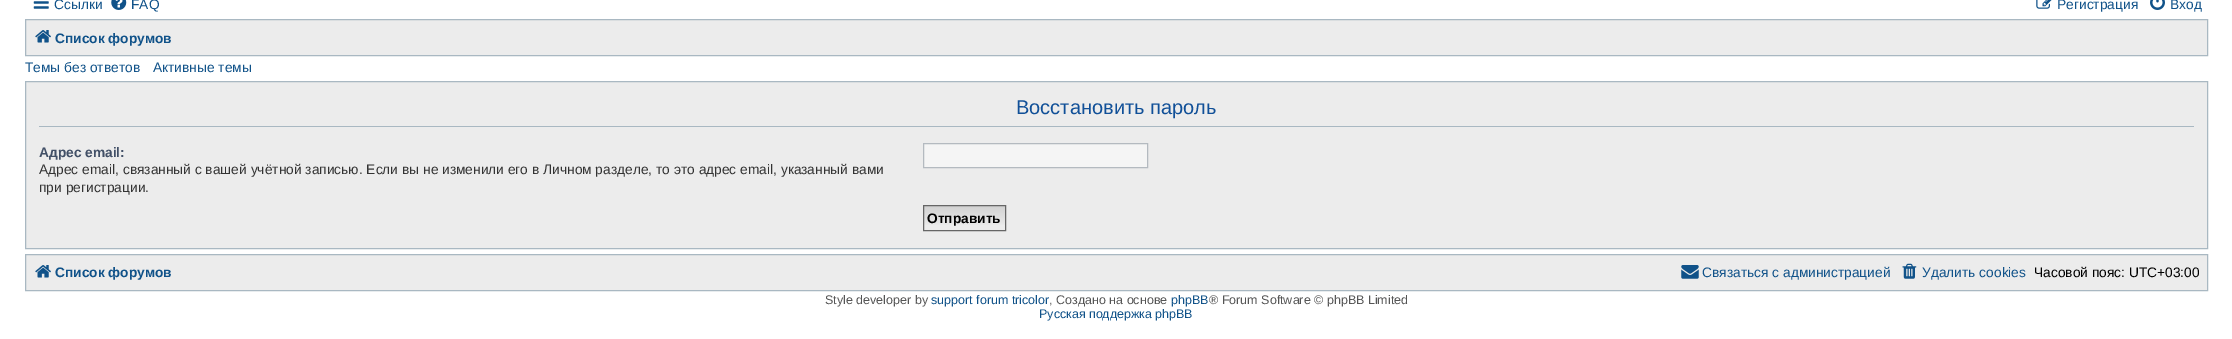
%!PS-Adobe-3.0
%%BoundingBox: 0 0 2232 339
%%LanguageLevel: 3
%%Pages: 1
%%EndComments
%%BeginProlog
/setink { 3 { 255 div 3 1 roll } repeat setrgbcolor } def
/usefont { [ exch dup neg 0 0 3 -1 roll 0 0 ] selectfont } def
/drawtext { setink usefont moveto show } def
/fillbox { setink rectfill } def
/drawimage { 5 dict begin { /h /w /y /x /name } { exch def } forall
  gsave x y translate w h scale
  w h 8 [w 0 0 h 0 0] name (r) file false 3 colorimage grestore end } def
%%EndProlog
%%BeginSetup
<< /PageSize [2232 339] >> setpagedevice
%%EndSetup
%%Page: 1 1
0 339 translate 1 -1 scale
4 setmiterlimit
0 0 2232 339 255 255 255 fillbox
(assets/img1.rgb) 33 1 16 8 drawimage
(Ссылки) 54 9 /LiberationSans-Regular 13.75 16 82 137 drawtext
(assets/img2.rgb) 111 0 16 10 drawimage
(FAQ) 131 9 /LiberationSans-Regular 13.75 16 82 137 drawtext
(assets/img3.rgb) 2036 0 16 9 drawimage
(Регистрация) 2057 9 /LiberationSans-Regular 13.75 16 82 137 drawtext
(assets/img4.rgb) 2150 0 15 10 drawimage
(Вход) 2170 9 /LiberationSans-Regular 13.75 16 82 137 drawtext
236 236 236 setink
25.5 19.5 moveto 2207.5 19.5 lineto 2207.5 55.5 lineto 25.5 55.5 lineto closepath gsave fill grestore
169 184 194 setink
stroke
(assets/img5.rgb) 35 30 16 13 drawimage
(Список форумов) 55 43 /LiberationSans-Bold 13.75 16 82 137 drawtext
(Темы без ответов) 25 72 /LiberationSans-Regular 13.75 16 82 137 drawtext
(Активные темы) 153 72 /LiberationSans-Regular 13.75 16 82 137 drawtext
236 236 236 setink
25.5 81.5 moveto 2207.5 81.5 lineto 2207.5 248.5 lineto 25.5 248.5 lineto closepath gsave fill grestore
169 184 194 setink
stroke
39 126 2155 1 169 184 194 fillbox
(Восстановить пароль) 1016 114 /LiberationSans-Regular 20 17 80 152 drawtext
(Адрес email:) 39 157 /LiberationSans-Bold 13.75 66 80 103 drawtext
(Адрес email, связанный с вашей учётной записью. Если вы не изменили его в Личном разделе, то это адрес email, указанный вами) 39 174 /LiberationSans-Regular 13.75 51 51 51 drawtext
(при регистрации.) 39 192 /LiberationSans-Regular 13.75 51 51 51 drawtext
245 245 245 setink
923.5 143.5 moveto 1147.5 143.5 lineto 1147.5 167.5 lineto 923.5 167.5 lineto closepath gsave fill grestore
180 186 192 setink
stroke
gsave 924 206 moveto 1005 206 lineto 1005 225 lineto 924 225 lineto closepath clip newpath
<< /ShadingType 2 /ColorSpace /DeviceRGB /Coords [964 206 964 230] /Extend [true true] /Function << /FunctionType 2 /Domain [0 1] /C0 [0.824 0.824 0.824] /C1 [0.937 0.937 0.937] /N 1 >> >> shfill grestore
102 102 102 setink
923.5 205.5 82 25 rectstroke
(Отправить) 927 223 /LiberationSans-Bold 13.75 0 0 0 drawtext
236 236 236 setink
25.5 254.5 moveto 2207.5 254.5 lineto 2207.5 290.5 lineto 25.5 290.5 lineto closepath gsave fill grestore
169 184 194 setink
stroke
(assets/img5.rgb) 35 265 16 13 drawimage
(Список форумов) 55 277 /LiberationSans-Bold 13.75 16 82 137 drawtext
(assets/img6.rgb) 1681 265 18 14 drawimage
(Связаться с администрацией) 1702 277 /LiberationSans-Regular 13.75 16 82 137 drawtext
(assets/img7.rgb) 1902 263 15 16 drawimage
(Удалить cookies) 1922 277 /LiberationSans-Regular 13.75 16 82 137 drawtext
(Часовой пояс: UTC+03:00) 2034 277 /LiberationSans-Regular 13.75 0 0 0 drawtext
(Style developer by) 825 304 /LiberationSans-Regular 12.5 85 85 85 drawtext
(support forum tricolor) 931 304 /LiberationSans-Regular 12.5 16 82 137 drawtext
(, Создано на основе) 1049 304 /LiberationSans-Regular 12.5 85 85 85 drawtext
(phpBB) 1171 304 /LiberationSans-Regular 12.5 16 82 137 drawtext
(® Forum Software © phpBB Limited) 1209 304 /LiberationSans-Regular 12.5 85 85 85 drawtext
(Русская поддержка phpBB) 1039 318 /LiberationSans-Regular 12.5 16 82 137 drawtext
showpage
%%EOF
